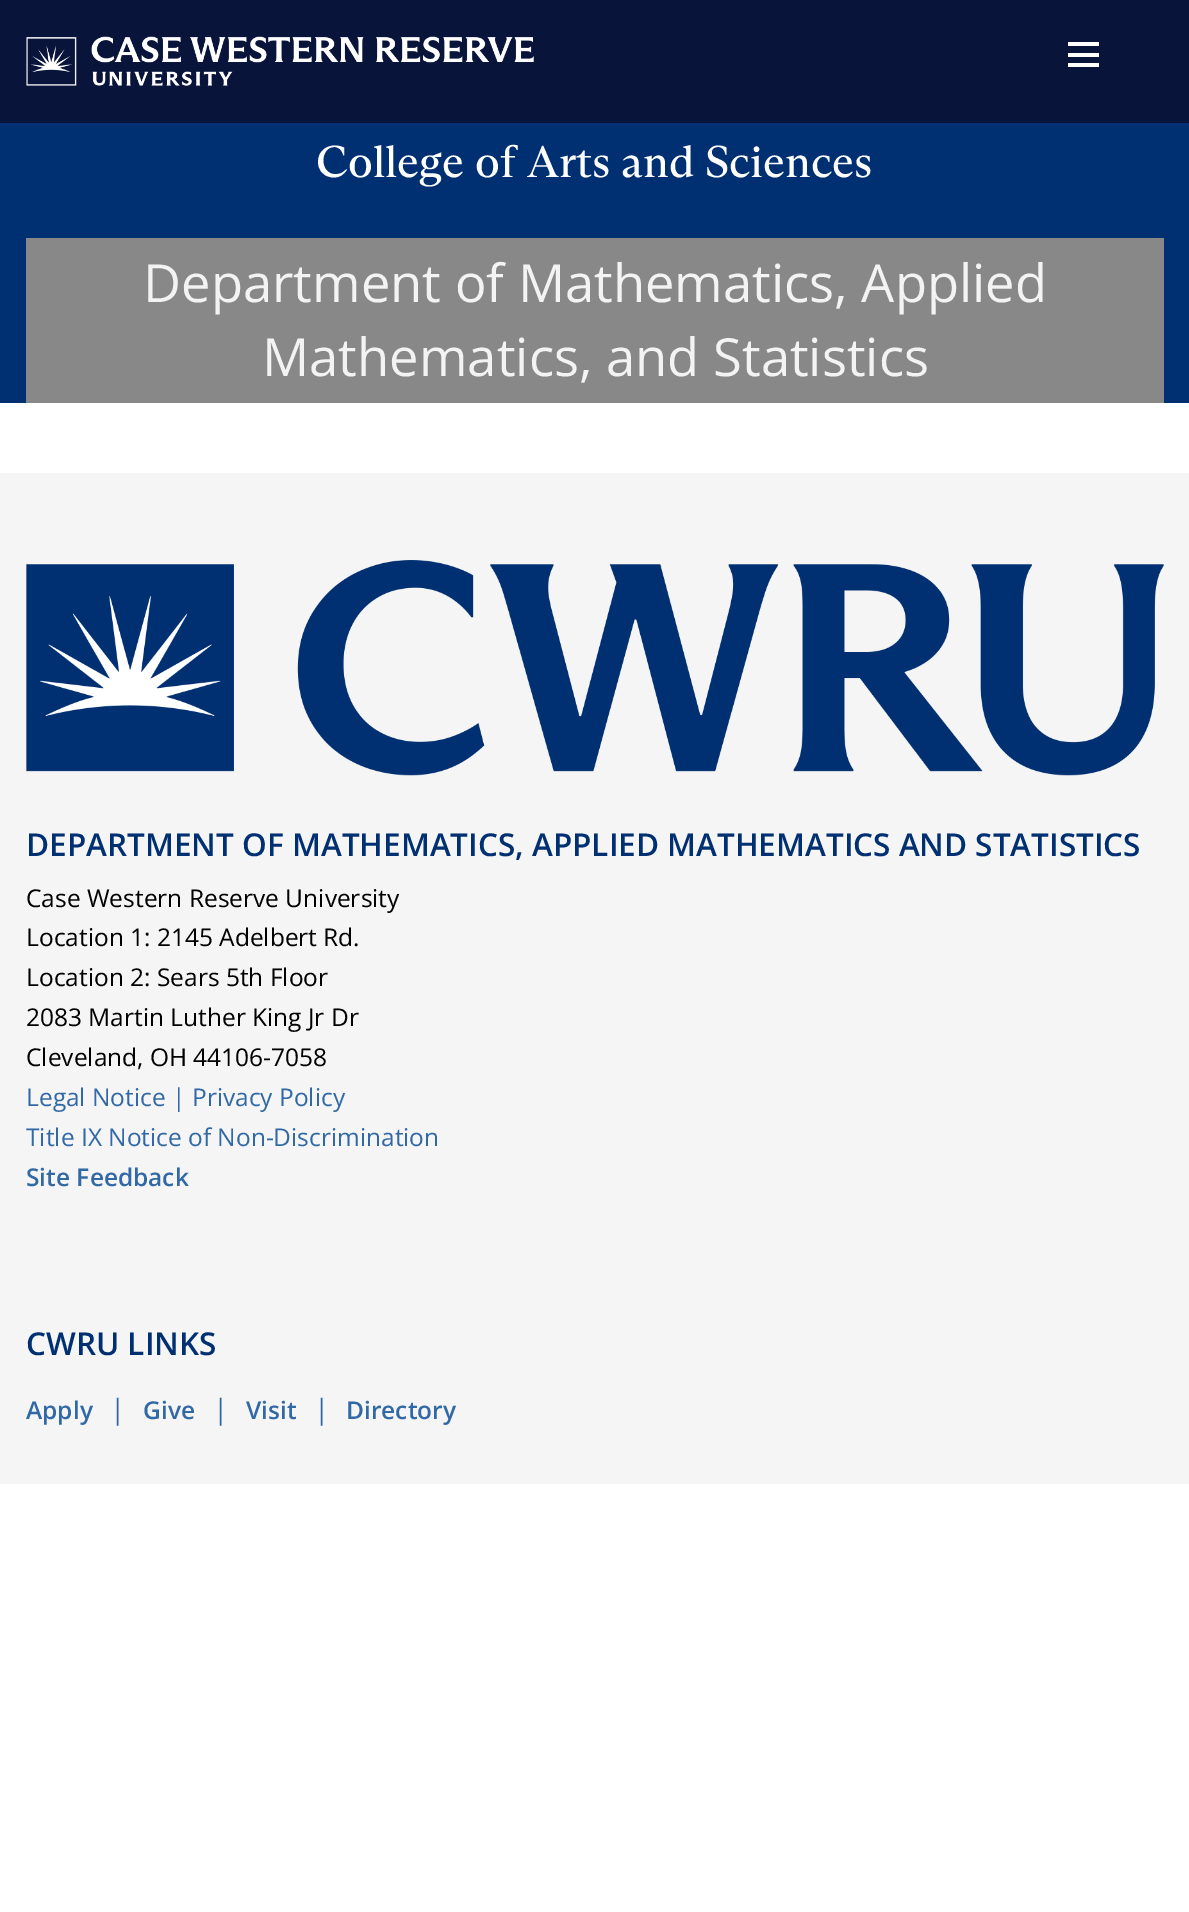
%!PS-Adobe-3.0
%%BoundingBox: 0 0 1189 1912
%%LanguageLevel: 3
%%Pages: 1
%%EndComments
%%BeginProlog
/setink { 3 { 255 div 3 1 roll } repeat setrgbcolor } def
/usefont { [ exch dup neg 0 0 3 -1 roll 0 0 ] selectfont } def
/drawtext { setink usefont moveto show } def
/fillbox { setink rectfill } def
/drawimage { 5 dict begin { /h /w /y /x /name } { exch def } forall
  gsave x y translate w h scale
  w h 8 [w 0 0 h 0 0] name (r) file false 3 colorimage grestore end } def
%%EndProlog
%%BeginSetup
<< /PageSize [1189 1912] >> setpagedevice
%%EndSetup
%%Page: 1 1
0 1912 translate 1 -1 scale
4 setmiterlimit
0 0 1189 1912 255 255 255 fillbox
0 0 1189 123 9 20 58 fillbox
(assets/img1.rgb) 26 36 508 50 drawimage
1068 53 31 4 255 255 255 fillbox
1068 42 31 4 255 255 255 fillbox
1068 63 31 4 255 255 255 fillbox
0 123 1189 280 0 48 113 fillbox
(College of Arts and Sciences) 316 177 /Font-Regular 44.75 255 255 255 drawtext
26 238 1138 165 136 136 136 fillbox
(Department of Mathematics, Applied) 143 302 /OpenSans-Regular 52.5 243 243 243 drawtext
(Mathematics, and Statistics) 262 376 /OpenSans-Regular 52.5 243 243 243 drawtext
0 473 1189 1011 245 245 245 fillbox
(assets/img2.rgb) 26 560 1138 216 drawimage
(DEPARTMENT OF MATHEMATICS, APPLIED MATHEMATICS AND STATISTICS) 26 856 /OpenSans-SemiBold 31.5 0 48 113 drawtext
(Case Western Reserve University) 26 907 /OpenSans-Regular 24.5 0 0 0 drawtext
(Location 1: 2145 Adelbert Rd.) 26 946 /OpenSans-Regular 24.5 0 0 0 drawtext
(Location 2: Sears 5th Floor) 26 986 /OpenSans-Regular 24.5 0 0 0 drawtext
(2083 Martin Luther King Jr Dr) 26 1026 /OpenSans-Regular 24.5 0 0 0 drawtext
(Cleveland, OH 44106-7058) 26 1066 /OpenSans-Regular 24.5 0 0 0 drawtext
(Legal Notice | Privacy Policy) 26 1106 /OpenSans-Regular 24.5 49 104 166 drawtext
(Title IX Notice of Non-Discrimination) 26 1146 /OpenSans-Regular 24.5 49 104 166 drawtext
(Site Feedback) 26 1186 /OpenSans-SemiBold 24.5 49 104 166 drawtext
(CWRU LINKS) 26 1355 /OpenSans-SemiBold 31.5 0 48 113 drawtext
(Apply) 26 1419 /OpenSans-SemiBold 24.5 49 104 166 drawtext
(|) 110 1419 /OpenSans-Regular 28 49 104 166 drawtext
(Give) 143 1419 /OpenSans-SemiBold 24.5 49 104 166 drawtext
(|) 213 1419 /OpenSans-Regular 28 49 104 166 drawtext
(Visit) 246 1419 /OpenSans-SemiBold 24.5 49 104 166 drawtext
(|) 314 1419 /OpenSans-Regular 28 49 104 166 drawtext
(Directory) 346 1419 /OpenSans-SemiBold 24.5 49 104 166 drawtext
showpage
%%EOF
